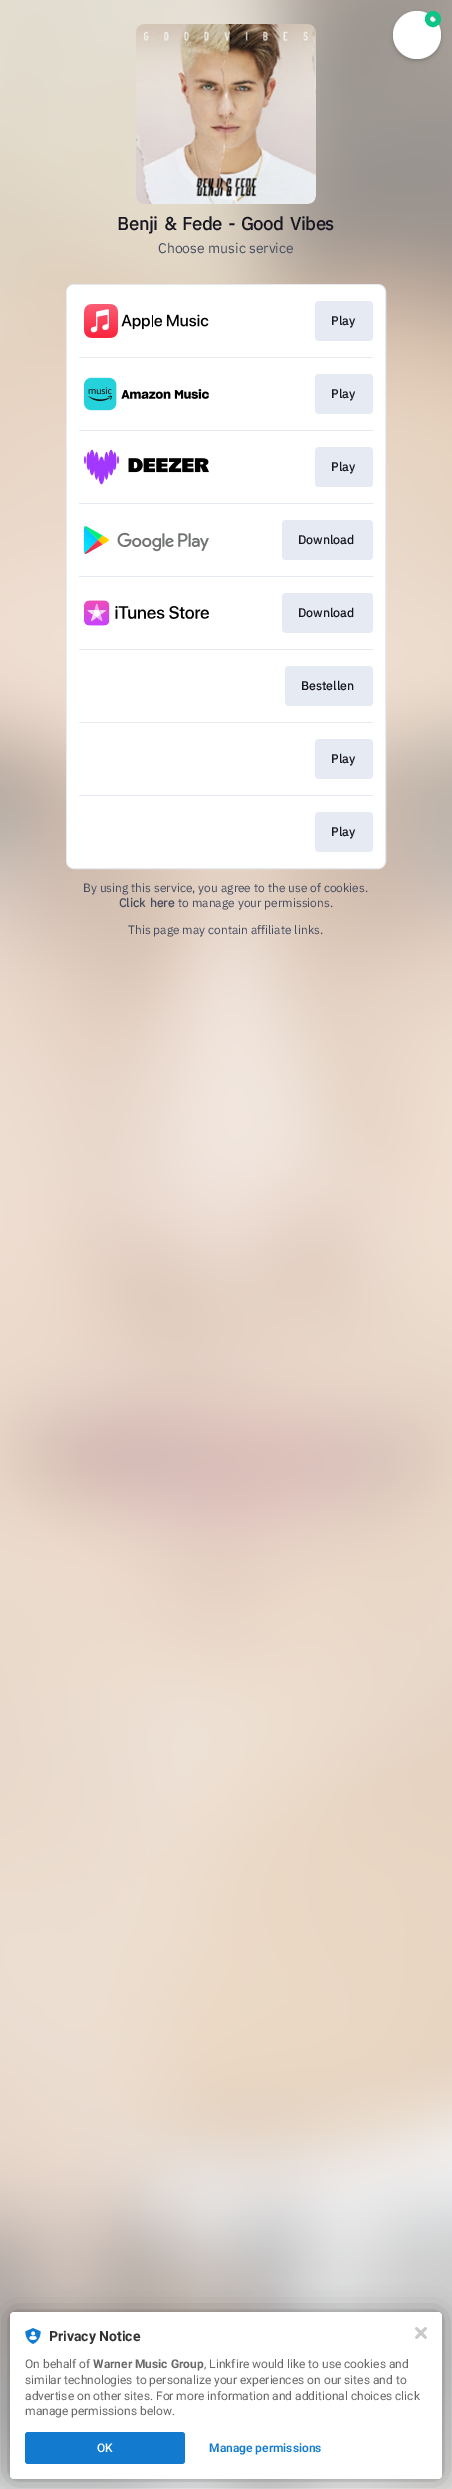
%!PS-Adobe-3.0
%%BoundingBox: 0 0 452 2489
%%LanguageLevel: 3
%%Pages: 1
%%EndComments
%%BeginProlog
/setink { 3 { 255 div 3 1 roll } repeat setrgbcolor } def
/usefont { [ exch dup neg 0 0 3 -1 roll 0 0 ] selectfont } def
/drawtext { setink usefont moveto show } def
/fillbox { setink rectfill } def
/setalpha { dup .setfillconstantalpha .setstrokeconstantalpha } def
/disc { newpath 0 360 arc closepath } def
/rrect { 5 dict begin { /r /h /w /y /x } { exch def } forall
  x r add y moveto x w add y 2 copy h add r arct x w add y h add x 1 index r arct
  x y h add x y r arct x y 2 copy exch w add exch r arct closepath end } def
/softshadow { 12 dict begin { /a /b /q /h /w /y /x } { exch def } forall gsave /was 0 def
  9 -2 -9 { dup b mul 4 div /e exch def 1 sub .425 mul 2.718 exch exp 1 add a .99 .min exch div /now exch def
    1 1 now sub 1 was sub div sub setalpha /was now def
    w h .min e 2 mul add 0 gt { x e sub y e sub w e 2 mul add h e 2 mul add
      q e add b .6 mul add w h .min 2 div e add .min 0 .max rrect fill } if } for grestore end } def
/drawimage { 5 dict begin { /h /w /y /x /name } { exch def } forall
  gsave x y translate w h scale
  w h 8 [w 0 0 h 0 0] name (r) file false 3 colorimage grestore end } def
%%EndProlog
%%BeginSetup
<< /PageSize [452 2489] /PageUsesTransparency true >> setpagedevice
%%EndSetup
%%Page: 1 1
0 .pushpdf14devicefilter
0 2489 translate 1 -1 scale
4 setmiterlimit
0 0 452 2489 255 255 255 fillbox
(assets/img1.rgb) 0 0 452 2489 drawimage
(assets/img2.rgb) 136 24 180 180 drawimage
(de) 182 46 /IBMPlexSans-Regular 8 213 201 186 drawtext
(s) 183 58 /IBMPlexSans-Regular 8 223 213 200 drawtext
/IBMPlexSans-Bold 18 usefont
24 23 33 setink
117 230 moveto 1.5 0 32 (Benji & Fede - Good Vibes) widthshow
(Choose music service) 158 253 /IBMPlexSans-Regular 14 69 75 95 drawtext
230 234 242 setink
66.5 284.5 319 584 7.5 rrect stroke
255 255 255 setink
67 285 318 583 7 rrect fill
(assets/img3.rgb) 84 304 125 34 drawimage
230 234 242 setink
315 301 58 40 4 rrect fill
/IBMPlexSans-Bold 12 usefont
24 23 33 setink
331 325 moveto 0.25 0 (Play) ashow
79 357 294 1 230 234 242 fillbox
(assets/img4.rgb) 84 377 125 34 drawimage
315 374 58 40 4 rrect fill
24 23 33 setink
331 398 moveto 0.25 0 (Play) ashow
79 430 294 1 230 234 242 fillbox
(assets/img5.rgb) 84 449 125 36 drawimage
315 447 58 40 4 rrect fill
24 23 33 setink
331 471 moveto 0.25 0 (Play) ashow
79 503 294 1 230 234 242 fillbox
(assets/img6.rgb) 84 526 125 28 drawimage
282 520 91 40 4 rrect fill
24 23 33 setink
298 544 moveto 0.25 0 (Download) ashow
79 576 294 1 230 234 242 fillbox
(assets/img7.rgb) 84 600 125 26 drawimage
282 593 91 40 4 rrect fill
24 23 33 setink
298 617 moveto 0.25 0 (Download) ashow
79 649 294 1 230 234 242 fillbox
285 666 88 40 4 rrect fill
24 23 33 setink
301 690 moveto 0.25 0 (Bestellen) ashow
79 722 294 1 230 234 242 fillbox
315 739 58 40 4 rrect fill
24 23 33 setink
331 763 moveto 0.25 0 (Play) ashow
79 795 294 1 230 234 242 fillbox
315 812 58 40 4 rrect fill
24 23 33 setink
331 836 moveto 0.25 0 (Play) ashow
(By using this service, you agree to the use of cookies.) 83 892 /IBMPlexSans-Regular 12 69 75 95 drawtext
/IBMPlexSans-Bold 12 usefont
119 907 moveto 2 0 32 (Click here) widthshow
(to manage your permissions.) 178 907 /IBMPlexSans-Regular 12 69 75 95 drawtext
(This page may contain affiliate links.) 128 934 /IBMPlexSans-Regular 12 69 75 95 drawtext
0 0 0 setink
393 13 48 48 24 2 0.2 softshadow
255 255 255 setink
417 35 24 disc fill
13 197 135 setink
5 setlinewidth
433 19 5.5 disc stroke
0 0 0 setink
10 2312 432 167 4 2 0.12 softshadow
10 2312 432 167 4 12 0.3 softshadow
255 255 255 setink
10 2312 432 167 4 rrect fill
(assets/img8.rgb) 25 2328 16 16 drawimage
(Privacy Notice) 49 2341 /Roboto-Bold 14 50 50 50 drawtext
(On behalf of) 25 2368 /Roboto-Regular 12 104 104 104 drawtext
(Warner Music Group) 93 2368 /Roboto-Bold 12 104 104 104 drawtext
(, Linkfire would like to use cookies and) 204 2368 /Roboto-Regular 12 104 104 104 drawtext
(similar technologies to personalize your experiences on our sites and to) 25 2384 /Roboto-Regular 12 104 104 104 drawtext
(advertise on other sites. For more information and additional choices click) 25 2400 /Roboto-Regular 12 104 104 104 drawtext
(manage permissions below.) 25 2415 /Roboto-Regular 12 104 104 104 drawtext
19 123 207 setink
25 2432 160 32 3 rrect fill
(OK) 97 2452 /Roboto-Medium 12 255 255 255 drawtext
(Manage permissions) 209 2452 /Roboto-SemiBold 12 19 123 207 drawtext
(assets/img9.rgb) 415 2327 12 12 drawimage
.poppdf14devicefilter showpage
%%EOF
